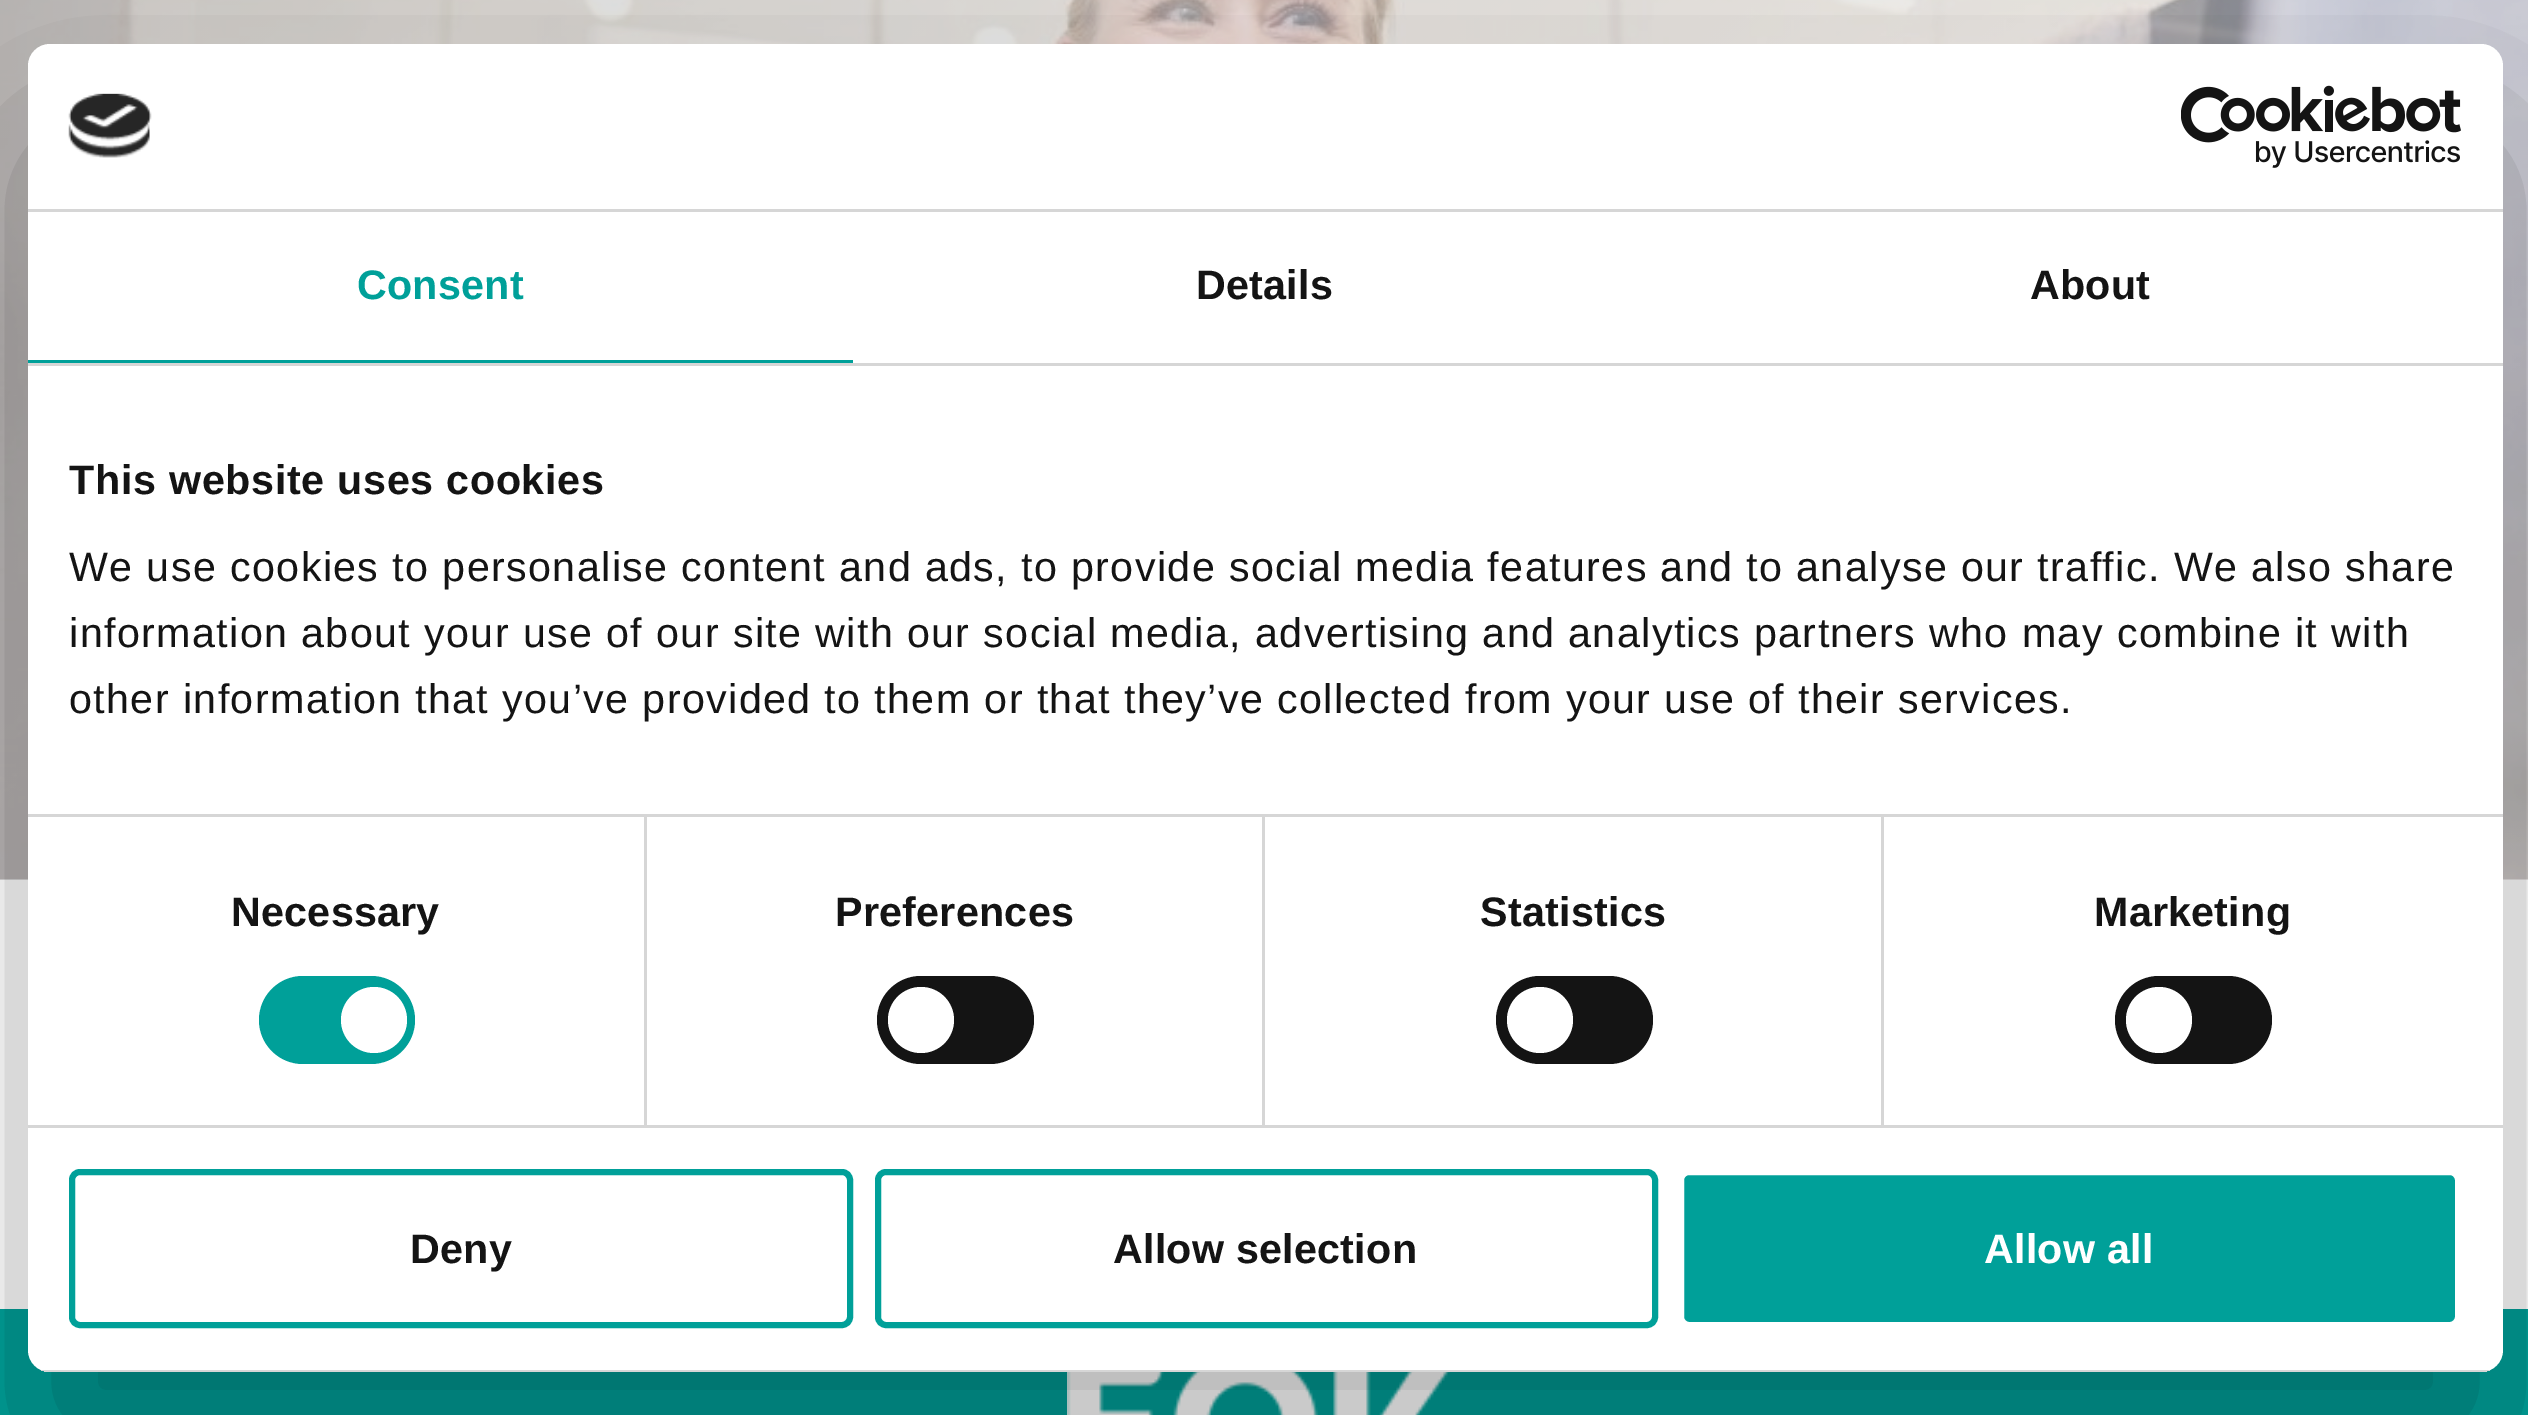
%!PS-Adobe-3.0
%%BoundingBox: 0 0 2528 1415
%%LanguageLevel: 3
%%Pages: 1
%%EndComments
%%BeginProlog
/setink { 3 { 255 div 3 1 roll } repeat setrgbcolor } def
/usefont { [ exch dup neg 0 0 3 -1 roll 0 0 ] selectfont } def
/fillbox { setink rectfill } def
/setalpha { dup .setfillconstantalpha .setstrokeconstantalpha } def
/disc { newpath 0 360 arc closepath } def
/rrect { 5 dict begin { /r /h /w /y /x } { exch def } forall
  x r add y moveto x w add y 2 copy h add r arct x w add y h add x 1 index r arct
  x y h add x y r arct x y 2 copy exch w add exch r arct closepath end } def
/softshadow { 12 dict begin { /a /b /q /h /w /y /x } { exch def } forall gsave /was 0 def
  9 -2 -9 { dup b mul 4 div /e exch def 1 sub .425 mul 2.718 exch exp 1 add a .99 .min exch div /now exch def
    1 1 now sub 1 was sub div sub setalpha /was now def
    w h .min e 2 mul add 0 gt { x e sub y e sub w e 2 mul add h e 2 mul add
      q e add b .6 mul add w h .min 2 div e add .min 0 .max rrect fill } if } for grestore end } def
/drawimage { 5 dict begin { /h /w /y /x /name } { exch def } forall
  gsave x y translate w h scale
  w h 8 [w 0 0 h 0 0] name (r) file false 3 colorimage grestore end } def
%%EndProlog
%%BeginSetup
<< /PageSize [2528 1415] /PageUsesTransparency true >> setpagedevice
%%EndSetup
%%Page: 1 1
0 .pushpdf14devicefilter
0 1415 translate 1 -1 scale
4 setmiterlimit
0 0 2528 1415 255 255 255 fillbox
(assets/img1.rgb) 0 0 2528 880 drawimage
0 1309 2528 106 0 160 153 fillbox
(assets/img4.rgb) 1067 1372 383 43 drawimage
0 0 0 setink
28 132 2475 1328 22 93.5 0.3 softshadow
255 255 255 setink
28 44 2475 1328 22 rrect fill
28 209 2475 3 214 214 214 fillbox
(assets/img2.rgb) 68 93 84 65 drawimage
(assets/img3.rgb) 2181 85 280 83 drawimage
28 363 2475 3 214 214 214 fillbox
28 360 825 3 0 160 153 fillbox
/LiberationSans-Bold 41.25 usefont
357 299 moveto 0.25 0 (Consent) ashow
20 20 20 setink
1196 299 moveto 0.25 0 (Details) ashow
2030 299 moveto 0.25 0 (About) ashow
28 814 2475 3 214 214 214 fillbox
20 20 20 setink
69 494 moveto 0.7 0 (This website uses cookies) ashow
/LiberationSans-Regular 41.25 usefont
69 581 moveto 1.38 0 (We use cookies to personalise content and ads, to provide social media features and to analyse our traffic. We also share) ashow
69 647 moveto 1.38 0 (information about your use of our site with our social media, advertising and analytics partners who may combine it with) ashow
69 713 moveto 1.38 0 (other information that you’ve provided to them or that they’ve collected from your use of their services.) ashow
28 1125 2475 3 214 214 214 fillbox
644 817 3 308 214 214 214 fillbox
/LiberationSans-Bold 41.25 usefont
20 20 20 setink
231 926 moveto 0.25 0 (Necessary) ashow
0 160 153 setink
259 976 156 88 44 rrect fill
255 255 255 setink
374 1020 33 disc fill
1262 817 3 308 214 214 214 fillbox
20 20 20 setink
835 926 moveto 0.25 0 (Preferences) ashow
877 976 157 88 44 rrect fill
255 255 255 setink
921 1020 33 disc fill
1881 817 3 308 214 214 214 fillbox
20 20 20 setink
1480 926 moveto 0.25 0 (Statistics) ashow
1496 976 157 88 44 rrect fill
255 255 255 setink
1540 1020 33 disc fill
20 20 20 setink
2094 926 moveto 0.25 0 (Marketing) ashow
2115 976 157 88 44 rrect fill
255 255 255 setink
2159 1020 33 disc fill
gsave
28 44 2475 1328 22 rrect clip newpath
41 1370 2449 2 214 214 214 fillbox
grestore
0 160 153 setink
6 setlinewidth
72 1172 778 153 8 rrect stroke
20 20 20 setink
410 1263 moveto 0.25 0 (Deny) ashow
0 160 153 setink
878 1172 777 153 8 rrect stroke
20 20 20 setink
1113 1263 moveto 0.25 0 (Allow selection) ashow
0 160 153 setink
1681 1172 777 153 8 rrect gsave fill grestore
255 255 255 setink
stroke
1984 1263 moveto 0.25 0 (Allow all) ashow
.poppdf14devicefilter showpage
%%EOF
